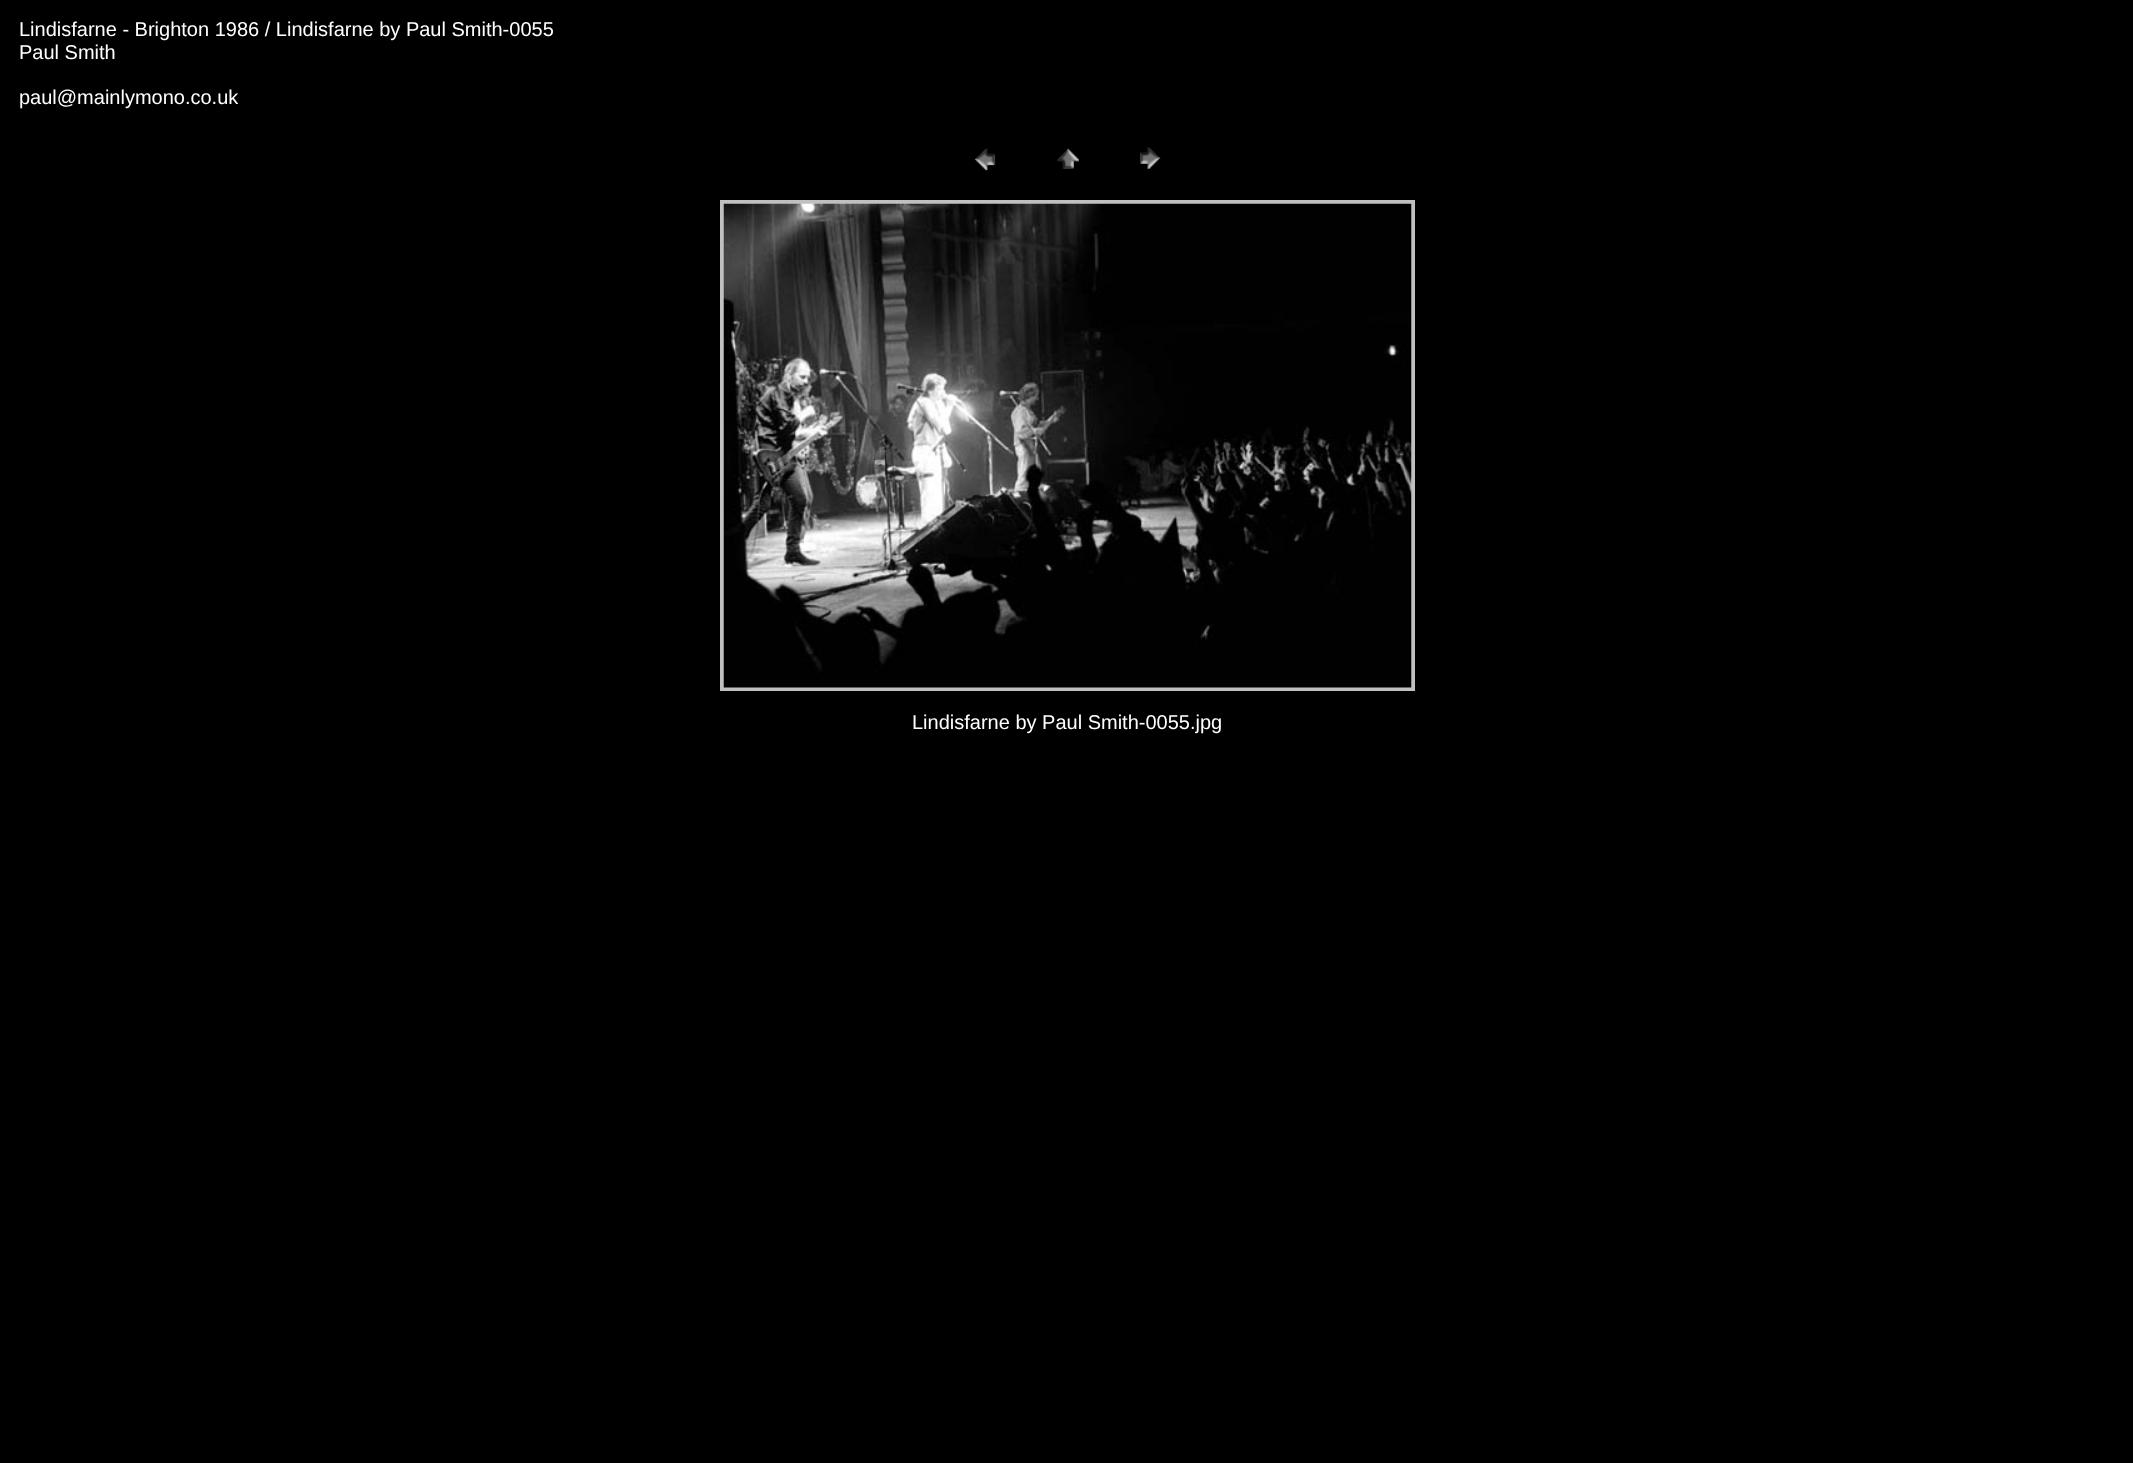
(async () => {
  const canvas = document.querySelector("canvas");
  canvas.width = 2133;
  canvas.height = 1463;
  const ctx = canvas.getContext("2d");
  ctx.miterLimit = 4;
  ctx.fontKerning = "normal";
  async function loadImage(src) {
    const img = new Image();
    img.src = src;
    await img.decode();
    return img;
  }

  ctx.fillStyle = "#000000";
  ctx.fillRect(0, 0, 2133, 1463);
  ctx.drawImage(await loadImage("img/1.png"), 974, 148, 22, 23);
  ctx.drawImage(await loadImage("img/2.png"), 1057, 148, 22, 21);
  ctx.drawImage(await loadImage("img/3.png"), 1140, 147, 21, 22);
  ctx.strokeStyle = "#c0c0c0";
  ctx.lineWidth = 4;
  ctx.strokeRect(722, 202, 691, 487);
  ctx.drawImage(await loadImage("img/4.png"), 723, 203, 689, 485);
  ctx.font = "20px Liberation Sans";
  ctx.fillStyle = "#ffffff";
  for (const [text, x, y] of [
    ["Lindisfarne - Brighton 1986 / Lindisfarne by Paul Smith-0055", 19, 36],
    ["Paul Smith", 19, 59],
    ["paul@mainlymono.co.uk", 19, 104],
    ["Lindisfarne by Paul Smith-0055.jpg", 912, 729],
  ]) {
    ctx.fillText(text, x, y);
  }
})();
